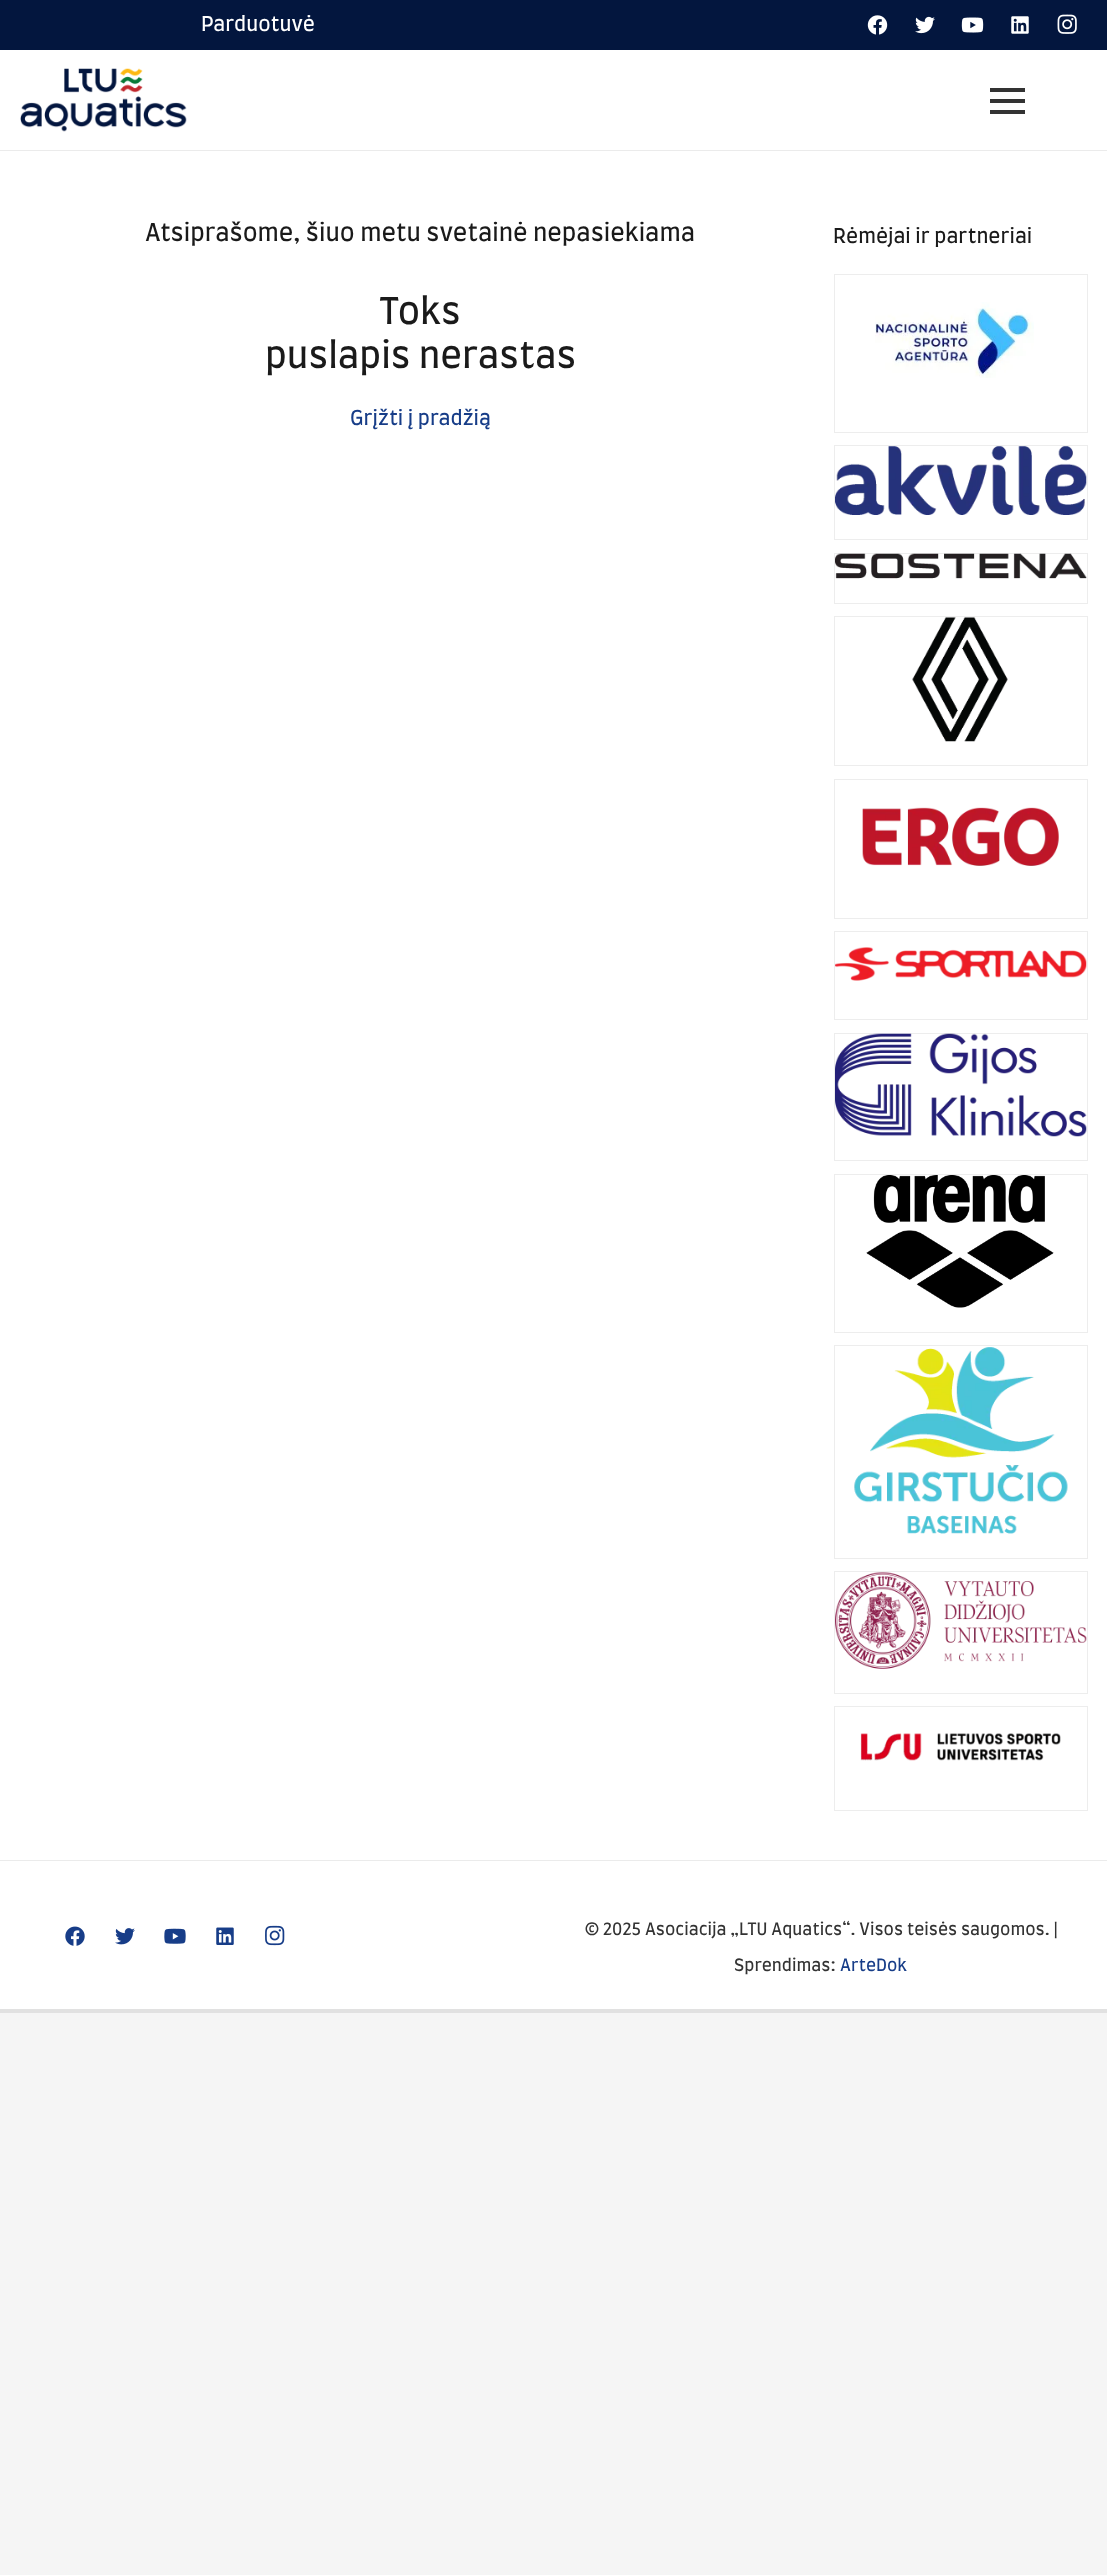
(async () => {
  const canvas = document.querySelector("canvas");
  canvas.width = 1107;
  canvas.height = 2575;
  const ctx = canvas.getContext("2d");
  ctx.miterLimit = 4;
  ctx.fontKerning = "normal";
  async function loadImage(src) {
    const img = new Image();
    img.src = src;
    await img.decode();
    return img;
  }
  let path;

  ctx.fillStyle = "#f5f5f5";
  ctx.fillRect(0, 0, 1107, 2575);
  ctx.fillStyle = "#ffffff";
  ctx.fillRect(0, 50, 1107, 1811);
  ctx.fillStyle = "#03163e";
  ctx.fillRect(0, 0, 1107, 50);
  ctx.drawImage(await loadImage("img/1.png"), 867, 15, 21, 20);
  ctx.drawImage(await loadImage("img/2.png"), 915, 16, 20, 18);
  ctx.drawImage(await loadImage("img/3.png"), 961, 17, 23, 16);
  ctx.drawImage(await loadImage("img/4.png"), 1011, 16, 18, 18);
  ctx.drawImage(await loadImage("img/5.png"), 1057, 14, 20, 20);
  ctx.fillStyle = "#ebebeb";
  path = new Path2D("M0 150V151H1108V51V150Z");
  ctx.fill(path);
  ctx.drawImage(await loadImage("img/6.png"), 20, 68, 167, 64);
  for (const [x, y, w, h, color] of [
    [990, 99, 35, 4, "#333333"],
    [990, 88, 35, 4, "#333333"],
    [990, 110, 35, 4, "#333333"],
  ]) {
    ctx.fillStyle = color;
    ctx.fillRect(x, y, w, h);
  }
  ctx.strokeStyle = "#ededed";
  ctx.strokeRect(834.5, 274.5, 253, 158);
  ctx.drawImage(await loadImage("img/7.png"), 875, 302, 159, 76);
  ctx.strokeRect(834.5, 445.5, 253, 94);
  ctx.drawImage(await loadImage("img/8.png"), 835, 446, 252, 69);
  ctx.strokeRect(834.5, 553.5, 253, 50);
  ctx.drawImage(await loadImage("img/9.png"), 835, 553, 252, 26);
  ctx.strokeRect(834.5, 616.5, 253, 149);
  ctx.drawImage(await loadImage("img/10.png"), 912, 617, 96, 125);
  ctx.strokeRect(834.5, 779.5, 253, 139);
  ctx.drawImage(await loadImage("img/11.png"), 862, 807, 197, 59);
  ctx.strokeRect(834.5, 931.5, 253, 88);
  ctx.drawImage(await loadImage("img/12.png"), 835, 947, 252, 34);
  ctx.strokeRect(834.5, 1033.5, 253, 127);
  ctx.drawImage(await loadImage("img/13.png"), 835, 1033, 252, 104);
  ctx.strokeRect(834.5, 1174.5, 253, 158);
  ctx.drawImage(await loadImage("img/14.png"), 866, 1175, 188, 133);
  ctx.strokeRect(834.5, 1345.5, 253, 213);
  ctx.drawImage(await loadImage("img/15.png"), 854, 1347, 214, 187);
  ctx.strokeRect(834.5, 1571.5, 253, 122);
  ctx.drawImage(await loadImage("img/16.png"), 835, 1572, 252, 97);
  ctx.strokeRect(834.5, 1706.5, 253, 104);
  ctx.drawImage(await loadImage("img/17.png"), 860, 1733, 201, 28);
  ctx.fillStyle = "rgba(0, 0, 0, 0.08)";
  path = new Path2D("M-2 1860V2013H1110V1860ZM0 1861V2009H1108V1861Z");
  ctx.fill(path, "evenodd");
  ctx.fillStyle = "#ffffff";
  ctx.fillRect(0, 1861, 1107, 148);
  ctx.drawImage(await loadImage("img/18.png"), 65, 1926, 20, 20);
  ctx.drawImage(await loadImage("img/19.png"), 115, 1928, 20, 17);
  ctx.drawImage(await loadImage("img/20.png"), 164, 1928, 22, 16);
  ctx.drawImage(await loadImage("img/21.png"), 216, 1927, 18, 18);
  ctx.drawImage(await loadImage("img/22.png"), 265, 1925, 20, 21);
  ctx.font = "20px Farro";
  ctx.fillText("Parduotuvė", 201, 31);
  ctx.font = "24px Farro";
  ctx.fillStyle = "#1a1a1a";
  ctx.fillText("Atsiprašome, šiuo metu svetainė nepasiekiama", 145, 241);
  ctx.font = "36px Farro";
  ctx.fillText("Toks", 379, 324);
  ctx.fillText("puslapis nerastas", 265, 368);
  ctx.font = "20px Farro";
  ctx.fillStyle = "#173d88";
  ctx.fillText("Grįžti į pradžią", 350, 425);
  ctx.fillStyle = "#1a1a1a";
  ctx.fillText("Rėmėjai ir partneriai", 833, 243);
  ctx.font = "16.7px Farro";
  ctx.fillStyle = "#333333";
  ctx.fillText("© 2025 Asociacija „LTU Aquatics“. Visos teisės saugomos. |", 585, 1935);
  ctx.fillText("Sprendimas:", 734, 1971);
  ctx.fillStyle = "#173d88";
  ctx.fillText("ArteDok", 840, 1971);
})();
